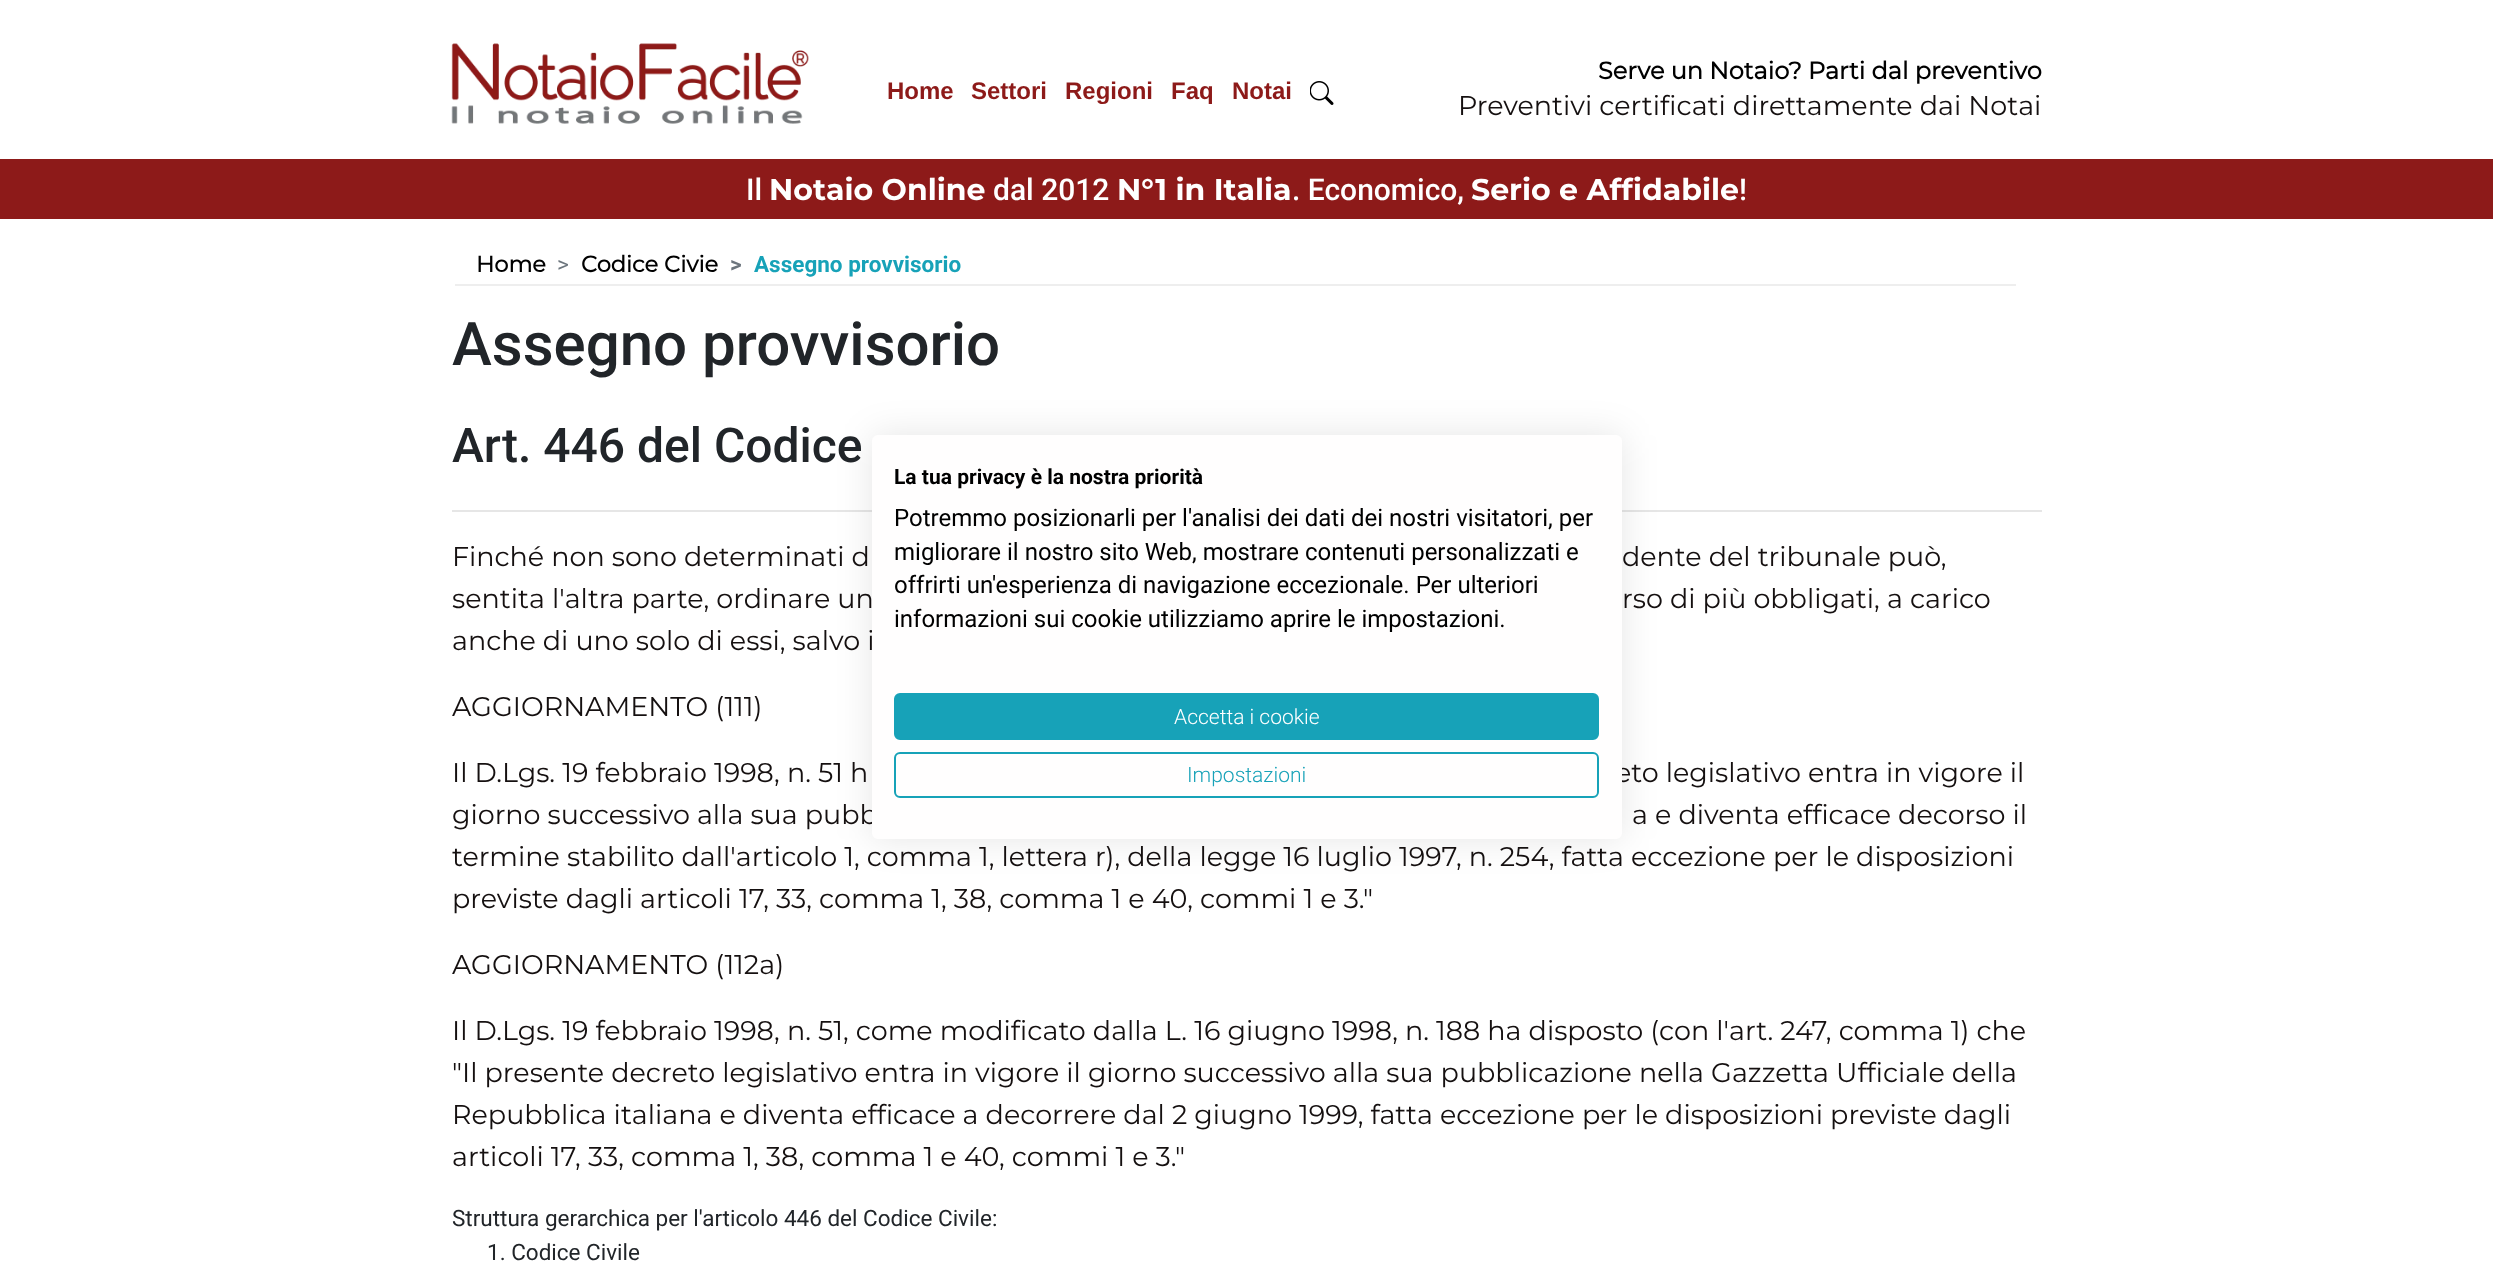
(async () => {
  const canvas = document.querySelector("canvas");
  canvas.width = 2493;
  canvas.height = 1273;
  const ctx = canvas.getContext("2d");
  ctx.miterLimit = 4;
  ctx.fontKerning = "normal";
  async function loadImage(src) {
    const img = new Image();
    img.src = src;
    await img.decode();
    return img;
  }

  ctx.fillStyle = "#ffffff";
  ctx.fillRect(0, 0, 2493, 1273);
  ctx.drawImage(await loadImage("img/1.png"), 451, 43, 358, 81);
  ctx.drawImage(await loadImage("img/2.png"), 1310, 81, 24, 24);
  for (const [x, y, w, h, color] of [
    [0, 159, 2493, 60, "#8d1a19"],
    [455, 284, 1561, 2, "#eeeeee"],
    [452, 510, 1590, 2, "#e6e6e6"],
  ]) {
    ctx.fillStyle = color;
    ctx.fillRect(x, y, w, h);
  }
  ctx.fillStyle = "rgba(0, 0, 0, 0.1)";
  ctx.filter = "blur(18px)";
  ctx.beginPath();
  ctx.roundRect(872, 435, 750, 404, 6);
  ctx.fill();
  ctx.filter = "none";
  ctx.font = "bold 24px Liberation Sans";
  ctx.fillStyle = "#8d1a19";
  for (const [text, x, y] of [
    ["Home", 887, 99],
    ["Settori", 971, 99],
    ["Regioni", 1065, 99],
    ["Faq", 1171, 99],
    ["Notai", 1232, 99],
  ]) {
    ctx.fillText(text, x, y);
  }
  ctx.font = "bold 24px Montserrat";
  ctx.fillStyle = "#000000";
  ctx.fillText("Serve un Notaio? Parti dal preventivo", 1598, 79);
  ctx.font = "27px Montserrat";
  ctx.fillStyle = "#151010";
  ctx.fillText("Preventivi certificati direttamente dai Notai", 1458, 115);
  ctx.font = "500 30px Roboto";
  ctx.fillStyle = "#ffffff";
  ctx.fillText("Il", 746, 200);
  ctx.font = "bold 30px 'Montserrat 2'";
  ctx.fillText("Notaio Online", 769, 200);
  ctx.font = "500 30px Roboto";
  ctx.fillText("dal 2012", 993, 200);
  ctx.font = "bold 30px 'Montserrat 2'";
  ctx.fillText("N°1 in Italia", 1117, 200);
  ctx.font = "500 30px Roboto";
  ctx.fillText(". Economico,", 1292, 200);
  ctx.font = "bold 30px 'Montserrat 2'";
  ctx.fillText("Serio e Affidabile", 1471, 200);
  ctx.font = "500 30px Roboto";
  ctx.fillText("!", 1739, 200);
  ctx.font = "bold 22.5px Montserrat";
  ctx.fillStyle = "#000000";
  ctx.fillText("Home", 476, 272);
  ctx.font = "22.5px Roboto";
  ctx.fillStyle = "#6c757d";
  ctx.fillText(">", 557, 272);
  ctx.font = "bold 22.5px Montserrat";
  ctx.fillStyle = "#000000";
  ctx.fillText("Codice Civie", 581, 272);
  ctx.font = "bold 22.5px Roboto";
  ctx.fillStyle = "#6c757d";
  ctx.fillText(">", 730, 272);
  ctx.fillStyle = "#17a2b8";
  ctx.fillText("Assegno provvisorio", 754, 272);
  ctx.font = "500 60px Roboto";
  ctx.fillStyle = "#212529";
  ctx.fillText("Assegno provvisorio", 452, 365);
  ctx.font = "500 48px Roboto";
  ctx.fillText("Art. 446 del Codice", 452, 462);
  ctx.font = "27px Montserrat";
  ctx.fillStyle = "#151010";
  for (const [text, x, y] of [
    ["Finché non sono determinati d", 452, 566],
    ["dente del tribunale può,", 1622, 566],
    ["sentita l'altra parte, ordinare un", 452, 608],
    ["rso di più obbligati, a carico", 1622, 608],
    ["anche di uno solo di essi, salvo i", 452, 650],
    ["AGGIORNAMENTO (111)", 452, 716],
    ["Il D.Lgs. 19 febbraio 1998, n. 51 h", 452, 782],
    ["eto legislativo entra in vigore il", 1615, 782],
    ["giorno successivo alla sua pubb", 452, 824],
    ["a e diventa efficace decorso il", 1632, 824],
    ["termine stabilito dall'articolo 1, comma 1, lettera r), della legge 16 luglio 1997, n. 254, fatta eccezione per le disposizioni", 452, 866],
    ["previste dagli articoli 17, 33, comma 1, 38, comma 1 e 40, commi 1 e 3.\"", 452, 908],
    ["AGGIORNAMENTO (112a)", 452, 974],
    ["Il D.Lgs. 19 febbraio 1998, n. 51, come modificato dalla L. 16 giugno 1998, n. 188 ha disposto (con l'art. 247, comma 1) che", 452, 1040],
    ["\"Il presente decreto legislativo entra in vigore il giorno successivo alla sua pubblicazione nella Gazzetta Ufficiale della", 452, 1082],
    ["Repubblica italiana e diventa efficace a decorrere dal 2 giugno 1999, fatta eccezione per le disposizioni previste dagli", 452, 1124],
    ["articoli 17, 33, comma 1, 38, comma 1 e 40, commi 1 e 3.\"", 452, 1166],
  ]) {
    ctx.fillText(text, x, y);
  }
  ctx.font = "22.5px Roboto";
  ctx.fillStyle = "#212529";
  ctx.fillText("Struttura gerarchica per l'articolo 446 del Codice Civile:", 452, 1226);
  ctx.fillText("1. Codice Civile", 487, 1260);
  ctx.fillStyle = "#fffefe";
  ctx.beginPath();
  ctx.roundRect(872, 435, 750, 404, 6);
  ctx.fill();
  ctx.font = "bold 21px Roboto";
  ctx.fillStyle = "#000000";
  ctx.fillText("La tua privacy è la nostra priorità", 894, 484);
  ctx.font = "24px Roboto";
  for (const [text, x, y] of [
    ["Potremmo posizionarli per l'analisi dei dati dei nostri visitatori, per", 894, 526],
    ["migliorare il nostro sito Web, mostrare contenuti personalizzati e", 894, 560],
    ["offrirti un'esperienza di navigazione eccezionale. Per ulteriori", 894, 593],
    ["informazioni sui cookie utilizziamo aprire le impostazioni.", 894, 627],
  ]) {
    ctx.fillText(text, x, y);
  }
  ctx.fillStyle = "#17a2b8";
  ctx.beginPath();
  ctx.roundRect(895, 694, 703, 45, 5);
  ctx.fill();
  ctx.strokeStyle = "#17a2b8";
  ctx.lineWidth = 2;
  ctx.stroke();
  ctx.font = "300 21px Roboto";
  ctx.fillStyle = "#ffffff";
  ctx.fillText("Accetta i cookie", 1174, 724);
  ctx.beginPath();
  ctx.roundRect(895, 753, 703, 44, 5);
  ctx.stroke();
  ctx.fillStyle = "#17a2b8";
  ctx.fillText("Impostazioni", 1187, 782);
})();
